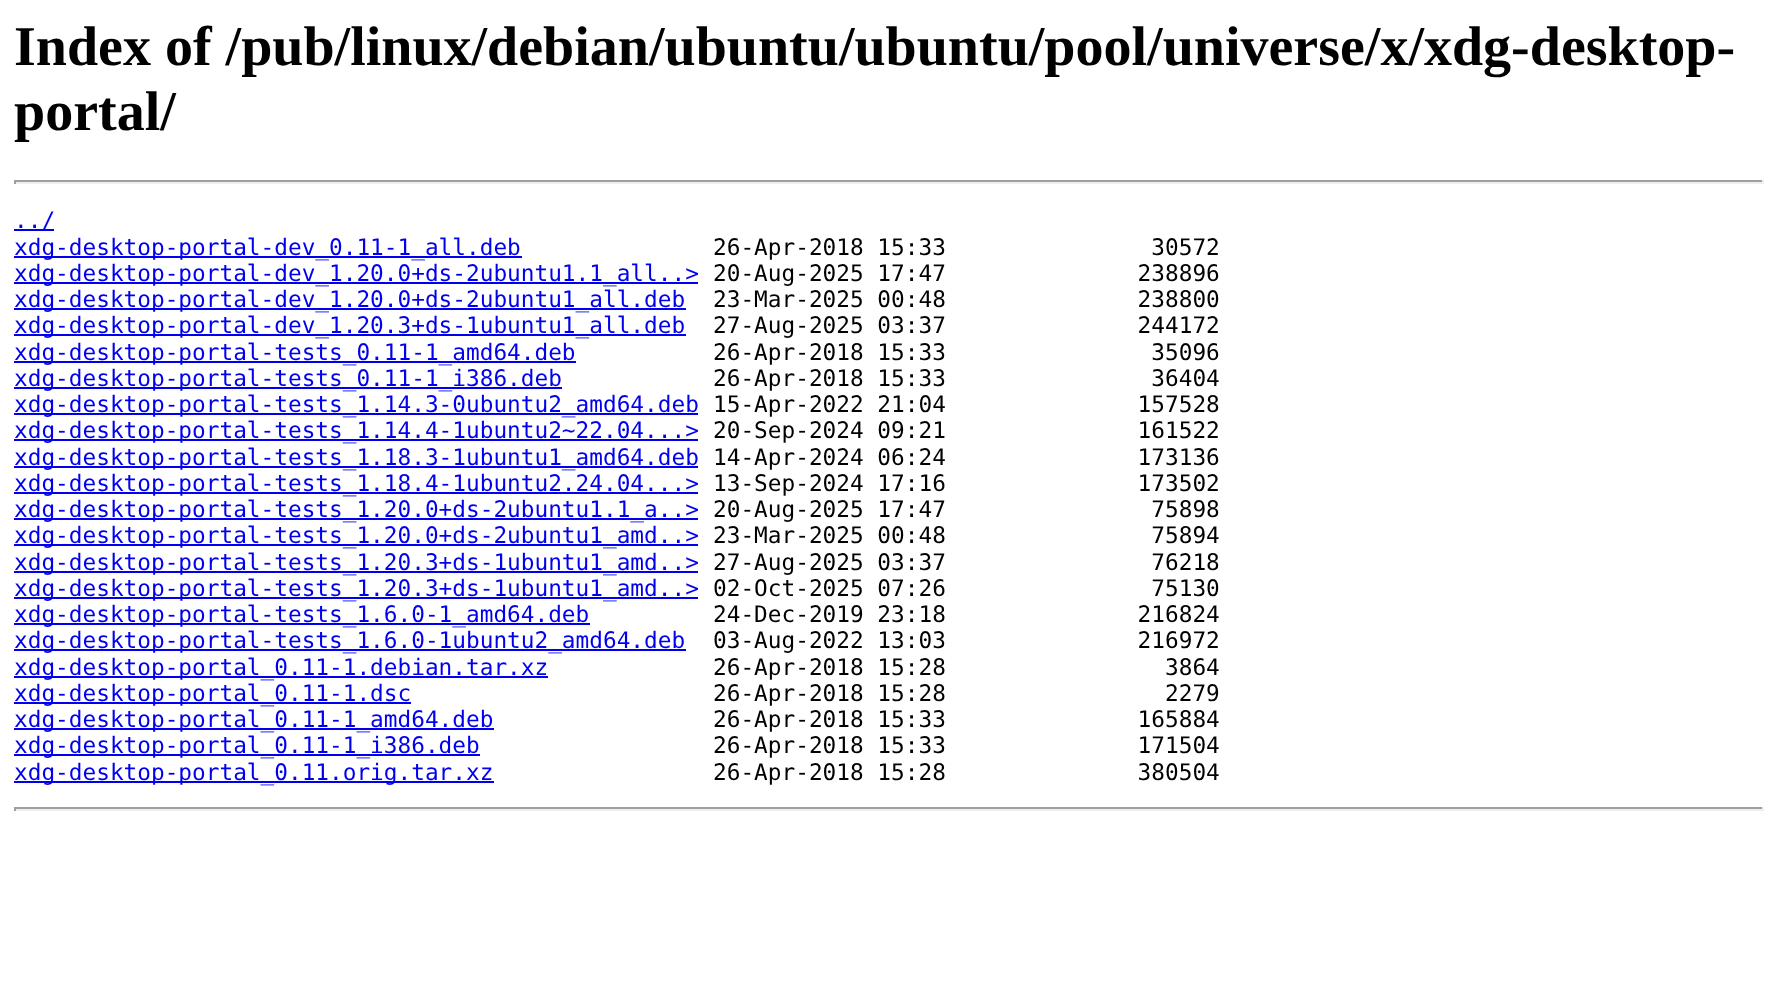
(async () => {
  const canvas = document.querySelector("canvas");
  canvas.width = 1778;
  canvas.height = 990;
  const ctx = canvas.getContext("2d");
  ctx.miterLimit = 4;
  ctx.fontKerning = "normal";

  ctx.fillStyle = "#ffffff";
  ctx.fillRect(0, 0, 1778, 990);
  for (const [x, y, w, h, color] of [
    [14, 180, 1750, 2, "#9f9f9f"],
    [1762, 180, 2, 4, "#eeeeee"],
    [14, 182, 1750, 2, "#eeeeee"],
    [14, 180, 2, 4, "#9f9f9f"],
    [14, 229, 40, 2, "#0000ee"],
    [14, 256, 508, 2, "#0000ee"],
    [14, 282, 684, 2, "#0000ee"],
    [14, 308, 672, 2, "#0000ee"],
    [14, 334, 672, 2, "#0000ee"],
    [14, 361, 562, 2, "#0000ee"],
    [14, 387, 548, 2, "#0000ee"],
    [14, 413, 684, 2, "#0000ee"],
    [14, 439, 684, 2, "#0000ee"],
    [14, 466, 684, 2, "#0000ee"],
    [14, 492, 684, 2, "#0000ee"],
    [14, 518, 684, 2, "#0000ee"],
    [14, 544, 684, 2, "#0000ee"],
    [14, 571, 684, 2, "#0000ee"],
    [14, 597, 684, 2, "#0000ee"],
    [14, 623, 576, 2, "#0000ee"],
    [14, 649, 672, 2, "#0000ee"],
    [14, 676, 534, 2, "#0000ee"],
    [14, 702, 397, 2, "#0000ee"],
    [14, 728, 480, 2, "#0000ee"],
    [14, 754, 466, 2, "#0000ee"],
    [14, 781, 480, 2, "#0000ee"],
    [14, 807, 1750, 2, "#9f9f9f"],
    [1762, 807, 2, 4, "#eeeeee"],
    [14, 809, 1750, 2, "#eeeeee"],
    [14, 807, 2, 4, "#9f9f9f"],
  ]) {
    ctx.fillStyle = color;
    ctx.fillRect(x, y, w, h);
  }
  ctx.font = "bold 56px Liberation Serif";
  ctx.fillStyle = "#000000";
  ctx.fillText("Index of /pub/linux/debian/ubuntu/ubuntu/pool/universe/x/xdg-desktop-", 14, 65);
  ctx.fillText("portal/", 14, 130);
  ctx.font = "22.75px DejaVu Sans Mono";
  ctx.fillStyle = "#0000ee";
  ctx.fillText("../", 14, 228);
  ctx.fillText("xdg-desktop-portal-dev_0.11-1_all.deb", 14, 255);
  ctx.fillStyle = "#000000";
  ctx.fillText("26-Apr-2018 15:33               30572", 713, 255);
  ctx.fillStyle = "#0000ee";
  ctx.fillText("xdg-desktop-portal-dev_1.20.0+ds-2ubuntu1.1_all..>", 14, 281);
  ctx.fillStyle = "#000000";
  ctx.fillText("20-Aug-2025 17:47              238896", 713, 281);
  ctx.fillStyle = "#0000ee";
  ctx.fillText("xdg-desktop-portal-dev_1.20.0+ds-2ubuntu1_all.deb", 14, 307);
  ctx.fillStyle = "#000000";
  ctx.fillText("23-Mar-2025 00:48              238800", 713, 307);
  ctx.fillStyle = "#0000ee";
  ctx.fillText("xdg-desktop-portal-dev_1.20.3+ds-1ubuntu1_all.deb", 14, 333);
  ctx.fillStyle = "#000000";
  ctx.fillText("27-Aug-2025 03:37              244172", 713, 333);
  ctx.fillStyle = "#0000ee";
  ctx.fillText("xdg-desktop-portal-tests_0.11-1_amd64.deb", 14, 360);
  ctx.fillStyle = "#000000";
  ctx.fillText("26-Apr-2018 15:33               35096", 713, 360);
  ctx.fillStyle = "#0000ee";
  ctx.fillText("xdg-desktop-portal-tests_0.11-1_i386.deb", 14, 386);
  ctx.fillStyle = "#000000";
  ctx.fillText("26-Apr-2018 15:33               36404", 713, 386);
  ctx.fillStyle = "#0000ee";
  ctx.fillText("xdg-desktop-portal-tests_1.14.3-0ubuntu2_amd64.deb", 14, 412);
  ctx.fillStyle = "#000000";
  ctx.fillText("15-Apr-2022 21:04              157528", 713, 412);
  ctx.fillStyle = "#0000ee";
  ctx.fillText("xdg-desktop-portal-tests_1.14.4-1ubuntu2~22.04...>", 14, 438);
  ctx.fillStyle = "#000000";
  ctx.fillText("20-Sep-2024 09:21              161522", 713, 438);
  ctx.fillStyle = "#0000ee";
  ctx.fillText("xdg-desktop-portal-tests_1.18.3-1ubuntu1_amd64.deb", 14, 465);
  ctx.fillStyle = "#000000";
  ctx.fillText("14-Apr-2024 06:24              173136", 713, 465);
  ctx.fillStyle = "#0000ee";
  ctx.fillText("xdg-desktop-portal-tests_1.18.4-1ubuntu2.24.04...>", 14, 491);
  ctx.fillStyle = "#000000";
  ctx.fillText("13-Sep-2024 17:16              173502", 713, 491);
  ctx.fillStyle = "#0000ee";
  ctx.fillText("xdg-desktop-portal-tests_1.20.0+ds-2ubuntu1.1_a..>", 14, 517);
  ctx.fillStyle = "#000000";
  ctx.fillText("20-Aug-2025 17:47               75898", 713, 517);
  ctx.fillStyle = "#0000ee";
  ctx.fillText("xdg-desktop-portal-tests_1.20.0+ds-2ubuntu1_amd..>", 14, 543);
  ctx.fillStyle = "#000000";
  ctx.fillText("23-Mar-2025 00:48               75894", 713, 543);
  ctx.fillStyle = "#0000ee";
  ctx.fillText("xdg-desktop-portal-tests_1.20.3+ds-1ubuntu1_amd..>", 14, 570);
  ctx.fillStyle = "#000000";
  ctx.fillText("27-Aug-2025 03:37               76218", 713, 570);
  ctx.fillStyle = "#0000ee";
  ctx.fillText("xdg-desktop-portal-tests_1.20.3+ds-1ubuntu1_amd..>", 14, 596);
  ctx.fillStyle = "#000000";
  ctx.fillText("02-Oct-2025 07:26               75130", 713, 596);
  ctx.fillStyle = "#0000ee";
  ctx.fillText("xdg-desktop-portal-tests_1.6.0-1_amd64.deb", 14, 622);
  ctx.fillStyle = "#000000";
  ctx.fillText("24-Dec-2019 23:18              216824", 713, 622);
  ctx.fillStyle = "#0000ee";
  ctx.fillText("xdg-desktop-portal-tests_1.6.0-1ubuntu2_amd64.deb", 14, 648);
  ctx.fillStyle = "#000000";
  ctx.fillText("03-Aug-2022 13:03              216972", 713, 648);
  ctx.fillStyle = "#0000ee";
  ctx.fillText("xdg-desktop-portal_0.11-1.debian.tar.xz", 14, 675);
  ctx.fillStyle = "#000000";
  ctx.fillText("26-Apr-2018 15:28                3864", 713, 675);
  ctx.fillStyle = "#0000ee";
  ctx.fillText("xdg-desktop-portal_0.11-1.dsc", 14, 701);
  ctx.fillStyle = "#000000";
  ctx.fillText("26-Apr-2018 15:28                2279", 713, 701);
  ctx.fillStyle = "#0000ee";
  ctx.fillText("xdg-desktop-portal_0.11-1_amd64.deb", 14, 727);
  ctx.fillStyle = "#000000";
  ctx.fillText("26-Apr-2018 15:33              165884", 713, 727);
  ctx.fillStyle = "#0000ee";
  ctx.fillText("xdg-desktop-portal_0.11-1_i386.deb", 14, 753);
  ctx.fillStyle = "#000000";
  ctx.fillText("26-Apr-2018 15:33              171504", 713, 753);
  ctx.fillStyle = "#0000ee";
  ctx.fillText("xdg-desktop-portal_0.11.orig.tar.xz", 14, 780);
  ctx.fillStyle = "#000000";
  ctx.fillText("26-Apr-2018 15:28              380504", 713, 780);
})();
